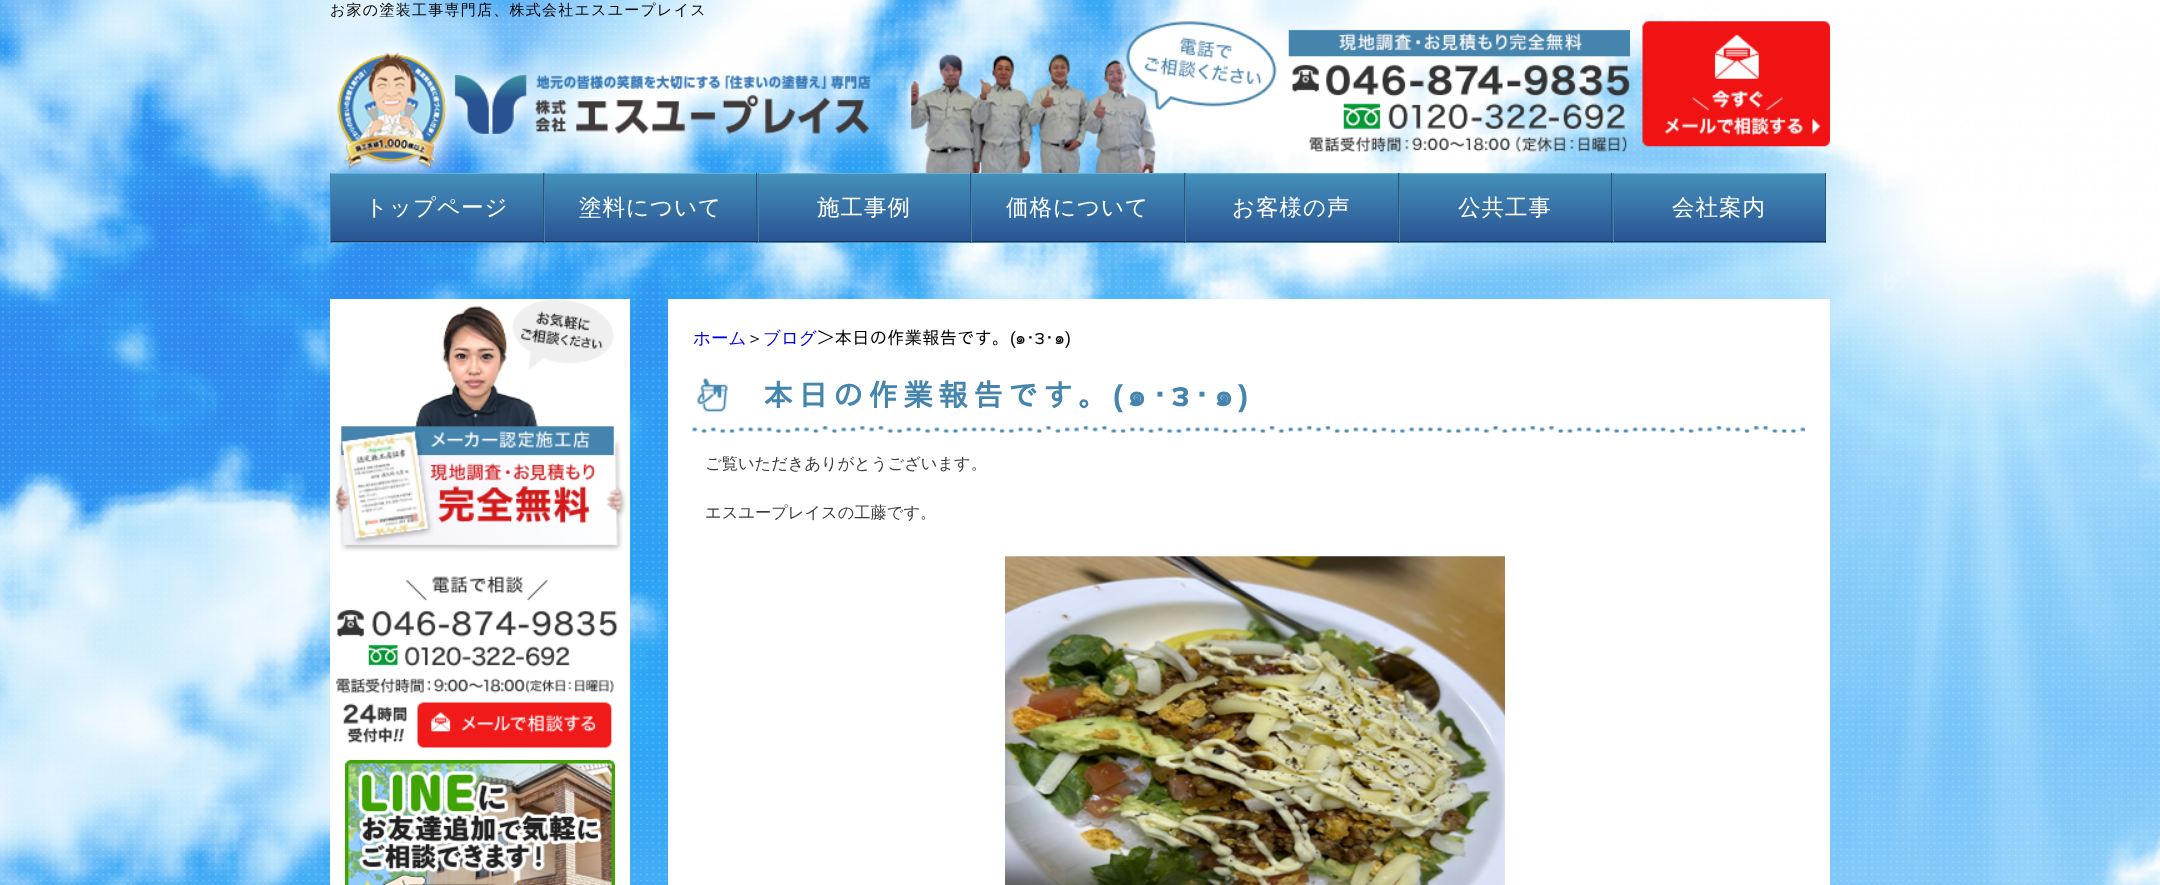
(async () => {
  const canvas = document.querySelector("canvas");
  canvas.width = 2160;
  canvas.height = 885;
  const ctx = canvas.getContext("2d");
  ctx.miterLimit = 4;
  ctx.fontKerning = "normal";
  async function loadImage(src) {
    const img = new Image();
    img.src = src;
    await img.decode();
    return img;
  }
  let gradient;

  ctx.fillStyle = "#ffffff";
  ctx.fillRect(0, 0, 2160, 885);
  ctx.drawImage(await loadImage("img/1.png"), 0, 0, 2160, 885);
  ctx.drawImage(await loadImage("img/2.png"), 316, 31, 578, 152);
  ctx.drawImage(await loadImage("img/3.png"), 911, 21, 719, 152);
  ctx.drawImage(await loadImage("img/4.png"), 1642, 21, 188, 126);
  gradient = ctx.createLinearGradient(437, 174, 437, 241);
  gradient.addColorStop(0, "#4491bb");
  gradient.addColorStop(1, "#2a5392");
  ctx.fillStyle = gradient;
  ctx.fillRect(331, 174, 212, 67);
  gradient = ctx.createLinearGradient(437, 241, 437, 309);
  gradient.addColorStop(0, "#4491bb");
  gradient.addColorStop(1, "#2a5392");
  ctx.fillStyle = gradient;
  ctx.fillRect(330, 242, 214, 1);
  for (const [x, y, w, h, color] of [
    [330, 173, 1496, 1, "#6cb0ce"],
    [543, 173, 1, 70, "#28577e"],
    [330, 241, 214, 1, "#163359"],
    [330, 173, 1, 70, "#4780af"],
  ]) {
    ctx.fillStyle = color;
    ctx.fillRect(x, y, w, h);
  }
  gradient = ctx.createLinearGradient(651, 174, 651, 241);
  gradient.addColorStop(0, "#4491bb");
  gradient.addColorStop(1, "#2a5392");
  ctx.fillStyle = gradient;
  ctx.fillRect(545, 174, 213, 67);
  gradient = ctx.createLinearGradient(651, 241, 651, 309);
  gradient.addColorStop(0, "#4491bb");
  gradient.addColorStop(1, "#2a5392");
  ctx.fillStyle = gradient;
  ctx.fillRect(544, 242, 214, 1);
  for (const [x, y, w, h, color] of [
    [756, 173, 1, 70, "#28577e"],
    [544, 241, 214, 1, "#163359"],
    [544, 173, 1, 70, "#4780af"],
  ]) {
    ctx.fillStyle = color;
    ctx.fillRect(x, y, w, h);
  }
  gradient = ctx.createLinearGradient(864, 174, 864, 241);
  gradient.addColorStop(0, "#4491bb");
  gradient.addColorStop(1, "#2a5392");
  ctx.fillStyle = gradient;
  ctx.fillRect(759, 174, 211, 67);
  gradient = ctx.createLinearGradient(864, 241, 864, 309);
  gradient.addColorStop(0, "#4491bb");
  gradient.addColorStop(1, "#2a5392");
  ctx.fillStyle = gradient;
  ctx.fillRect(758, 242, 213, 1);
  for (const [x, y, w, h, color] of [
    [970, 173, 1, 70, "#28577e"],
    [758, 241, 213, 1, "#163359"],
    [758, 173, 1, 70, "#4780af"],
  ]) {
    ctx.fillStyle = color;
    ctx.fillRect(x, y, w, h);
  }
  gradient = ctx.createLinearGradient(1078, 174, 1078, 241);
  gradient.addColorStop(0, "#4491bb");
  gradient.addColorStop(1, "#2a5392");
  ctx.fillStyle = gradient;
  ctx.fillRect(972, 174, 212, 67);
  gradient = ctx.createLinearGradient(1078, 241, 1078, 309);
  gradient.addColorStop(0, "#4491bb");
  gradient.addColorStop(1, "#2a5392");
  ctx.fillStyle = gradient;
  ctx.fillRect(971, 242, 214, 1);
  for (const [x, y, w, h, color] of [
    [1184, 173, 1, 70, "#28577e"],
    [971, 241, 214, 1, "#163359"],
    [971, 173, 1, 70, "#4780af"],
  ]) {
    ctx.fillStyle = color;
    ctx.fillRect(x, y, w, h);
  }
  gradient = ctx.createLinearGradient(1292, 174, 1292, 241);
  gradient.addColorStop(0, "#4491bb");
  gradient.addColorStop(1, "#2a5392");
  ctx.fillStyle = gradient;
  ctx.fillRect(1186, 174, 212, 67);
  gradient = ctx.createLinearGradient(1292, 241, 1292, 309);
  gradient.addColorStop(0, "#4491bb");
  gradient.addColorStop(1, "#2a5392");
  ctx.fillStyle = gradient;
  ctx.fillRect(1185, 242, 214, 1);
  for (const [x, y, w, h, color] of [
    [1398, 173, 1, 70, "#28577e"],
    [1185, 241, 214, 1, "#163359"],
    [1185, 173, 1, 70, "#4780af"],
  ]) {
    ctx.fillStyle = color;
    ctx.fillRect(x, y, w, h);
  }
  gradient = ctx.createLinearGradient(1506, 174, 1506, 241);
  gradient.addColorStop(0, "#4491bb");
  gradient.addColorStop(1, "#2a5392");
  ctx.fillStyle = gradient;
  ctx.fillRect(1400, 174, 213, 67);
  gradient = ctx.createLinearGradient(1506, 241, 1506, 309);
  gradient.addColorStop(0, "#4491bb");
  gradient.addColorStop(1, "#2a5392");
  ctx.fillStyle = gradient;
  ctx.fillRect(1399, 242, 214, 1);
  for (const [x, y, w, h, color] of [
    [1611, 173, 1, 70, "#28577e"],
    [1399, 241, 214, 1, "#163359"],
    [1399, 173, 1, 70, "#4780af"],
  ]) {
    ctx.fillStyle = color;
    ctx.fillRect(x, y, w, h);
  }
  gradient = ctx.createLinearGradient(1719, 174, 1719, 241);
  gradient.addColorStop(0, "#4491bb");
  gradient.addColorStop(1, "#2a5392");
  ctx.fillStyle = gradient;
  ctx.fillRect(1614, 174, 211, 67);
  gradient = ctx.createLinearGradient(1719, 241, 1719, 309);
  gradient.addColorStop(0, "#4491bb");
  gradient.addColorStop(1, "#2a5392");
  ctx.fillStyle = gradient;
  ctx.fillRect(1613, 242, 213, 1);
  for (const [x, y, w, h, color] of [
    [1825, 173, 1, 70, "#28577e"],
    [1613, 241, 213, 1, "#163359"],
    [1613, 173, 1, 70, "#4780af"],
    [330, 299, 300, 586, "#ffffff"],
  ]) {
    ctx.fillStyle = color;
    ctx.fillRect(x, y, w, h);
  }
  ctx.drawImage(await loadImage("img/5.png"), 334, 298, 292, 450);
  ctx.drawImage(await loadImage("img/6.png"), 345, 760, 270, 125);
  ctx.fillRect(668, 299, 1162, 586);
  ctx.drawImage(await loadImage("img/7.png"), 692, 378, 1113, 55);
  ctx.drawImage(await loadImage("img/8.png"), 1005, 556, 500, 329);
  ctx.letterSpacing = "1.25px";
  ctx.font = "500 15px WenQuanYi Zen Hei";
  ctx.fillStyle = "#000000";
  ctx.fillText("お家の塗装工事専門店、株式会社エスユープレイス", 330, 15);
  ctx.letterSpacing = "1px";
  ctx.font = "500 22.5px WenQuanYi Zen Hei";
  ctx.fillStyle = "#ffffff";
  for (const [text, x, y] of [
    ["トップページ", 365, 215],
    ["塗料について", 579, 215],
    ["施工事例", 817, 215],
    ["価格について", 1006, 215],
    ["お客様の声", 1232, 215],
    ["公共工事", 1458, 215],
    ["会社案内", 1672, 215],
  ]) {
    ctx.fillText(text, x, y);
  }
  ctx.letterSpacing = "0px";
  ctx.font = "500 17.5px WenQuanYi Zen Hei";
  ctx.fillStyle = "#0000ee";
  ctx.fillText("ホーム", 693, 344);
  ctx.fillStyle = "#000000";
  ctx.fillText("＞", 746, 344);
  ctx.fillStyle = "#0000ee";
  ctx.fillText("ブログ", 763, 344);
  ctx.font = "17.5px IPAGothic";
  ctx.fillStyle = "#000000";
  ctx.fillText("＞本日の作業報告です。", 817, 344);
  ctx.font = "17.5px Liberation Sans";
  ctx.fillText("(", 1010, 344);
  ctx.font = "17.5px Loma";
  ctx.fillText("๑", 1015, 344);
  ctx.font = "17.5px IPAGothic";
  ctx.fillText("･", 1026, 344);
  ctx.font = "17.5px Noto Sans Telugu";
  ctx.fillText("౩", 1035, 344);
  ctx.font = "17.5px IPAGothic";
  ctx.fillText("･", 1045, 344);
  ctx.font = "17.5px Loma";
  ctx.fillText("๑", 1054, 344);
  ctx.font = "17.5px Liberation Sans";
  ctx.fillText(")", 1065, 344);
  ctx.letterSpacing = "5px";
  ctx.font = "bold 30px IPAGothic";
  ctx.fillStyle = "#4484ad";
  ctx.fillText("本日の作業報告です。", 763, 406);
  ctx.font = "bold 30px Liberation Sans";
  ctx.fillText("(", 1113, 406);
  ctx.font = "bold 30px Loma";
  ctx.fillText("๑", 1127, 406);
  ctx.font = "bold 30px IPAGothic";
  ctx.fillText("･", 1152, 406);
  ctx.font = "bold 30px Noto Sans Telugu";
  ctx.fillText("౩", 1172, 406);
  ctx.font = "bold 30px IPAGothic";
  ctx.fillText("･", 1194, 406);
  ctx.font = "bold 30px Loma";
  ctx.fillText("๑", 1214, 406);
  ctx.font = "bold 30px Liberation Sans";
  ctx.fillText(")", 1238, 406);
  ctx.letterSpacing = "0px";
  ctx.font = "500 16.25px WenQuanYi Zen Hei";
  ctx.fillStyle = "#3a3a3a";
  ctx.fillText("ご覧いただきありがとうございます。", 705, 469);
  ctx.fillText("エスユープレイスの工藤です。", 705, 518);
})();
